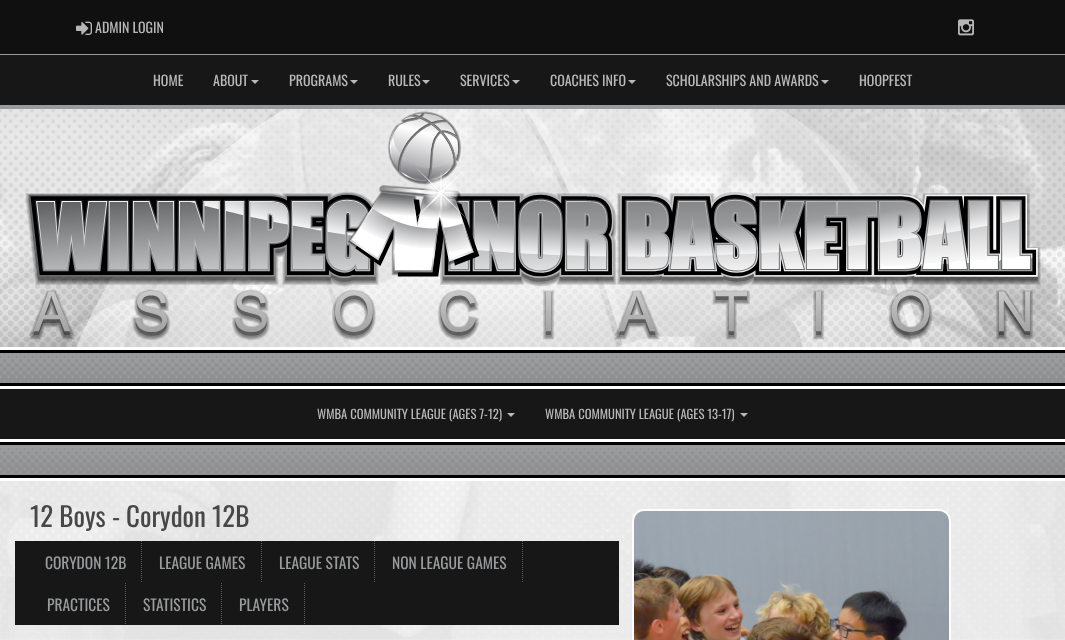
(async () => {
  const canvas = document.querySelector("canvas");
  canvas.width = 1065;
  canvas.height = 640;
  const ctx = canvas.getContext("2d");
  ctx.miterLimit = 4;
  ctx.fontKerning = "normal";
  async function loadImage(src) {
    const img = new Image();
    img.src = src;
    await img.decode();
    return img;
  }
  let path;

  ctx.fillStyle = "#ffffff";
  ctx.fillRect(0, 0, 1065, 640);
  ctx.fillStyle = "#9a9b9c";
  ctx.fillRect(0, 54, 1065, 1);
  ctx.fillStyle = "#101010";
  ctx.fillRect(0, 0, 1065, 54);
  ctx.drawImage(await loadImage("img/1.png"), 76, 21, 16, 14);
  ctx.drawImage(await loadImage("img/2.png"), 958, 19, 16, 17);
  ctx.fillStyle = "#171717";
  ctx.fillRect(0, 55, 1065, 50);
  ctx.fillStyle = "#9a9b9c";
  ctx.fillRect(0, 105, 1065, 4);
  ctx.fillStyle = "#b9b9b9";
  path = new Path2D("M251 80H259L255 84Z");
  ctx.fill(path);
  path = new Path2D("M350 80H358L354 84Z");
  ctx.fill(path);
  path = new Path2D("M422 80H430L426 84Z");
  ctx.fill(path);
  path = new Path2D("M512 80H520L516 84Z");
  ctx.fill(path);
  path = new Path2D("M628 80H636L632 84Z");
  ctx.fill(path);
  path = new Path2D("M821 80H829L825 84Z");
  ctx.fill(path);
  ctx.drawImage(await loadImage("img/3.png"), 0, 109, 1065, 531);
  ctx.drawImage(await loadImage("img/4.png"), 0, 109, 1065, 238);
  ctx.drawImage(await loadImage("img/5.png"), 25, 111, 1016, 230);
  ctx.fillStyle = "#9a9b9c";
  ctx.fillRect(0, 353, 1065, 30);
  ctx.drawImage(await loadImage("img/6.png"), 0, 347, 1065, 42);
  ctx.fillStyle = "#171717";
  ctx.fillRect(0, 389, 1065, 50);
  ctx.fillStyle = "#b9b9b9";
  path = new Path2D("M507 413H515L511 417Z");
  ctx.fill(path);
  path = new Path2D("M740 413H748L744 417Z");
  ctx.fill(path);
  ctx.fillStyle = "#9a9b9c";
  ctx.fillRect(0, 445, 1065, 30);
  ctx.drawImage(await loadImage("img/6.png"), 0, 439, 1065, 42);
  ctx.fillStyle = "rgba(255, 255, 255, 0.8)";
  ctx.fillRect(0, 481, 1065, 159);
  ctx.fillStyle = "#171717";
  ctx.fillRect(15, 541, 604, 84);
  path = new Path2D("M141.5 541V583");
  ctx.strokeStyle = "#5d5d5d";
  ctx.setLineDash([1, 1]);
  ctx.stroke(path);
  path = new Path2D("M261.5 541V583");
  ctx.stroke(path);
  path = new Path2D("M374.5 541V583");
  ctx.stroke(path);
  path = new Path2D("M522.5 541V583");
  ctx.stroke(path);
  path = new Path2D("M125.5 583V625");
  ctx.stroke(path);
  path = new Path2D("M221.5 583V625");
  ctx.stroke(path);
  path = new Path2D("M304.5 583V625");
  ctx.stroke(path);
  ctx.beginPath();
  ctx.roundRect(633, 510, 317, 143, 11);
  ctx.strokeStyle = "rgba(255, 255, 255, 0.9)";
  ctx.lineWidth = 2;
  ctx.setLineDash([]);
  ctx.stroke();
  ctx.drawImage(await loadImage("img/7.png"), 634, 511, 315, 129);
  ctx.font = "14px Oswald";
  ctx.fillStyle = "#b9b9b9";
  for (const [text, x, y] of [
    ["ADMIN LOGIN", 95, 33],
    ["HOME", 153, 86],
    ["ABOUT", 213, 86],
    ["PROGRAMS", 289, 86],
    ["RULES", 388, 86],
    ["SERVICES", 460, 86],
    ["COACHES INFO", 550, 86],
    ["SCHOLARSHIPS AND AWARDS", 666, 86],
    ["HOOPFEST", 859, 86],
  ]) {
    ctx.fillText(text, x, y);
  }
  ctx.font = "12.6px Oswald";
  ctx.fillText("WMBA COMMUNITY LEAGUE (AGES 7-12)", 317, 419);
  ctx.fillText("WMBA COMMUNITY LEAGUE (AGES 13-17)", 545, 419);
  ctx.font = "27px Oswald";
  ctx.fillStyle = "#474747";
  for (const [text, x, y] of [
    ["12 Boys", 30, 527],
    ["-", 112, 527],
    ["Corydon 12B", 126, 527],
  ]) {
    ctx.fillText(text, x, y);
  }
  ctx.font = "15.5px Oswald";
  ctx.fillStyle = "#9a9b9c";
  for (const [text, x, y] of [
    ["CORYDON 12B", 45, 569],
    ["LEAGUE GAMES", 159, 569],
    ["LEAGUE STATS", 279, 569],
    ["NON LEAGUE GAMES", 392, 569],
    ["PRACTICES", 47, 611],
    ["STATISTICS", 143, 611],
    ["PLAYERS", 239, 611],
  ]) {
    ctx.fillText(text, x, y);
  }
})();
